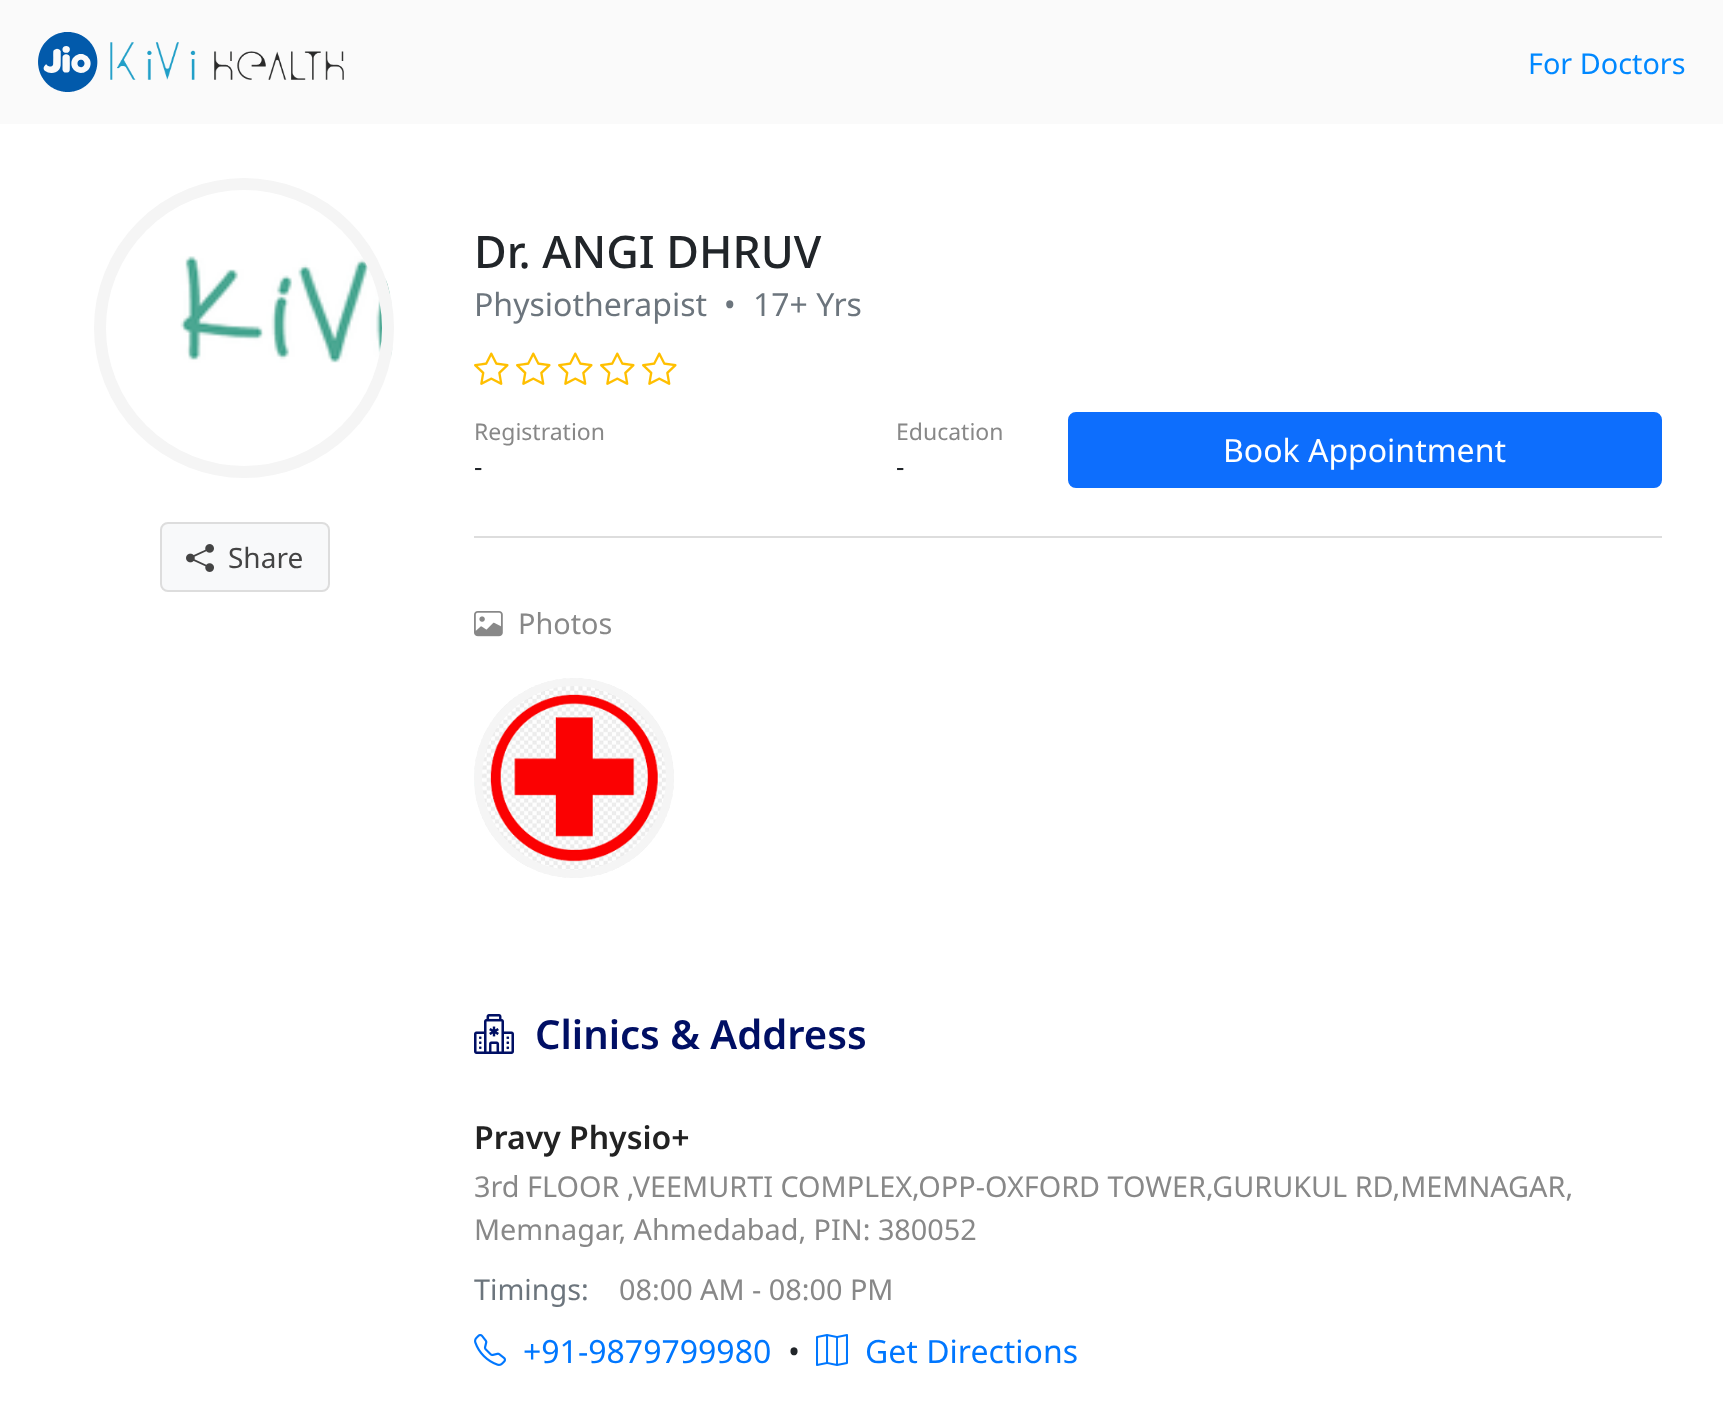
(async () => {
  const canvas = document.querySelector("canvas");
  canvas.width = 1723;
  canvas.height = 1412;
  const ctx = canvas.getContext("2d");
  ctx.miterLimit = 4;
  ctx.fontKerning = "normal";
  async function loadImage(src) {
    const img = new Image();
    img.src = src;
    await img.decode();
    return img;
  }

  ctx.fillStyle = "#ffffff";
  ctx.fillRect(0, 0, 1723, 1412);
  ctx.fillStyle = "#fafafa";
  ctx.fillRect(0, 0, 1723, 124);
  ctx.drawImage(await loadImage("img/1.png"), 38, 32, 306, 60);
  ctx.drawImage(await loadImage("img/2.png"), 180, 256, 213, 107);
  ctx.beginPath();
  ctx.arc(244, 328, 144, 0, Math.PI * 2);
  ctx.strokeStyle = "#f5f5f5";
  ctx.lineWidth = 12;
  ctx.stroke();
  ctx.fillStyle = "#f8f9fa";
  ctx.beginPath();
  ctx.roundRect(161, 523, 168, 68, 7);
  ctx.fill();
  ctx.strokeStyle = "#dddddd";
  ctx.lineWidth = 2;
  ctx.stroke();
  ctx.drawImage(await loadImage("img/3.png"), 186, 544, 28, 28);
  ctx.fillStyle = "#dddddd";
  ctx.fillRect(474, 536, 1188, 2);
  ctx.drawImage(await loadImage("img/4.png"), 474, 352, 35, 33);
  ctx.drawImage(await loadImage("img/4.png"), 516, 352, 35, 33);
  ctx.drawImage(await loadImage("img/4.png"), 558, 352, 35, 33);
  ctx.drawImage(await loadImage("img/4.png"), 600, 352, 35, 33);
  ctx.drawImage(await loadImage("img/4.png"), 642, 352, 35, 33);
  ctx.fillStyle = "#0d6efd";
  ctx.beginPath();
  ctx.roundRect(1069, 413, 592, 74, 7);
  ctx.fill();
  ctx.strokeStyle = "#0d6efd";
  ctx.stroke();
  ctx.drawImage(await loadImage("img/5.png"), 474, 611, 29, 26);
  ctx.drawImage(await loadImage("img/6.png"), 474, 678, 200, 200);
  ctx.beginPath();
  ctx.arc(574, 778, 96, 0, Math.PI * 2);
  ctx.strokeStyle = "#f5f5f5";
  ctx.lineWidth = 8;
  ctx.stroke();
  ctx.drawImage(await loadImage("img/7.png"), 474, 1014, 40, 40);
  ctx.drawImage(await loadImage("img/8.png"), 474, 1334, 32, 32);
  ctx.drawImage(await loadImage("img/9.png"), 816, 1334, 32, 32);
  ctx.font = "28.8px Noto Sans";
  ctx.fillStyle = "#0088ff";
  ctx.fillText("For Doctors", 1528, 74);
  ctx.font = "28px Noto Sans";
  ctx.fillStyle = "#444444";
  ctx.fillText("Share", 228, 568);
  ctx.font = "500 44.75px Noto Sans";
  ctx.fillStyle = "#212529";
  ctx.fillText("Dr. ANGI DHRUV", 474, 268);
  ctx.font = "32px Noto Sans";
  ctx.fillStyle = "#6c757d";
  ctx.fillText("Physiotherapist  •", 474, 316);
  ctx.fillText("17+ Yrs", 753, 316);
  ctx.font = "23px Noto Sans";
  ctx.fillStyle = "#888888";
  ctx.fillText("Registration", 474, 440);
  ctx.font = "26px Noto Sans";
  ctx.fillStyle = "#212529";
  ctx.fillText("-", 474, 476);
  ctx.font = "23px Noto Sans";
  ctx.fillStyle = "#888888";
  ctx.fillText("Education", 896, 440);
  ctx.font = "26px Noto Sans";
  ctx.fillStyle = "#212529";
  ctx.fillText("-", 896, 476);
  ctx.font = "32px Noto Sans";
  ctx.fillStyle = "#ffffff";
  ctx.fillText("Book Appointment", 1223, 462);
  ctx.font = "28.8px Noto Sans";
  ctx.fillStyle = "#888888";
  ctx.fillText("Photos", 518, 634);
  ctx.font = "600 40px Noto Sans";
  ctx.fillStyle = "#000f64";
  ctx.fillText("Clinics & Address", 535, 1049);
  ctx.font = "600 32px Noto Sans";
  ctx.fillStyle = "#222222";
  ctx.fillText("Pravy Physio+", 474, 1149);
  ctx.font = "28.8px Noto Sans";
  ctx.fillStyle = "#888888";
  ctx.fillText("3rd FLOOR ,VEEMURTI COMPLEX,OPP-OXFORD TOWER,GURUKUL RD,MEMNAGAR,", 474, 1197);
  ctx.fillText("Memnagar, Ahmedabad, PIN: 380052", 474, 1240);
  ctx.fillStyle = "#6c757d";
  ctx.fillText("Timings:", 474, 1300);
  ctx.fillStyle = "#888888";
  ctx.fillText("08:00 AM - 08:00 PM", 619, 1300);
  ctx.font = "32px Noto Sans";
  ctx.fillStyle = "#0077ff";
  ctx.fillText("+91-9879799980", 523, 1363);
  ctx.fillStyle = "#212529";
  ctx.fillText("•", 788, 1363);
  ctx.fillStyle = "#0077ff";
  ctx.fillText("Get Directions", 865, 1363);
})();
